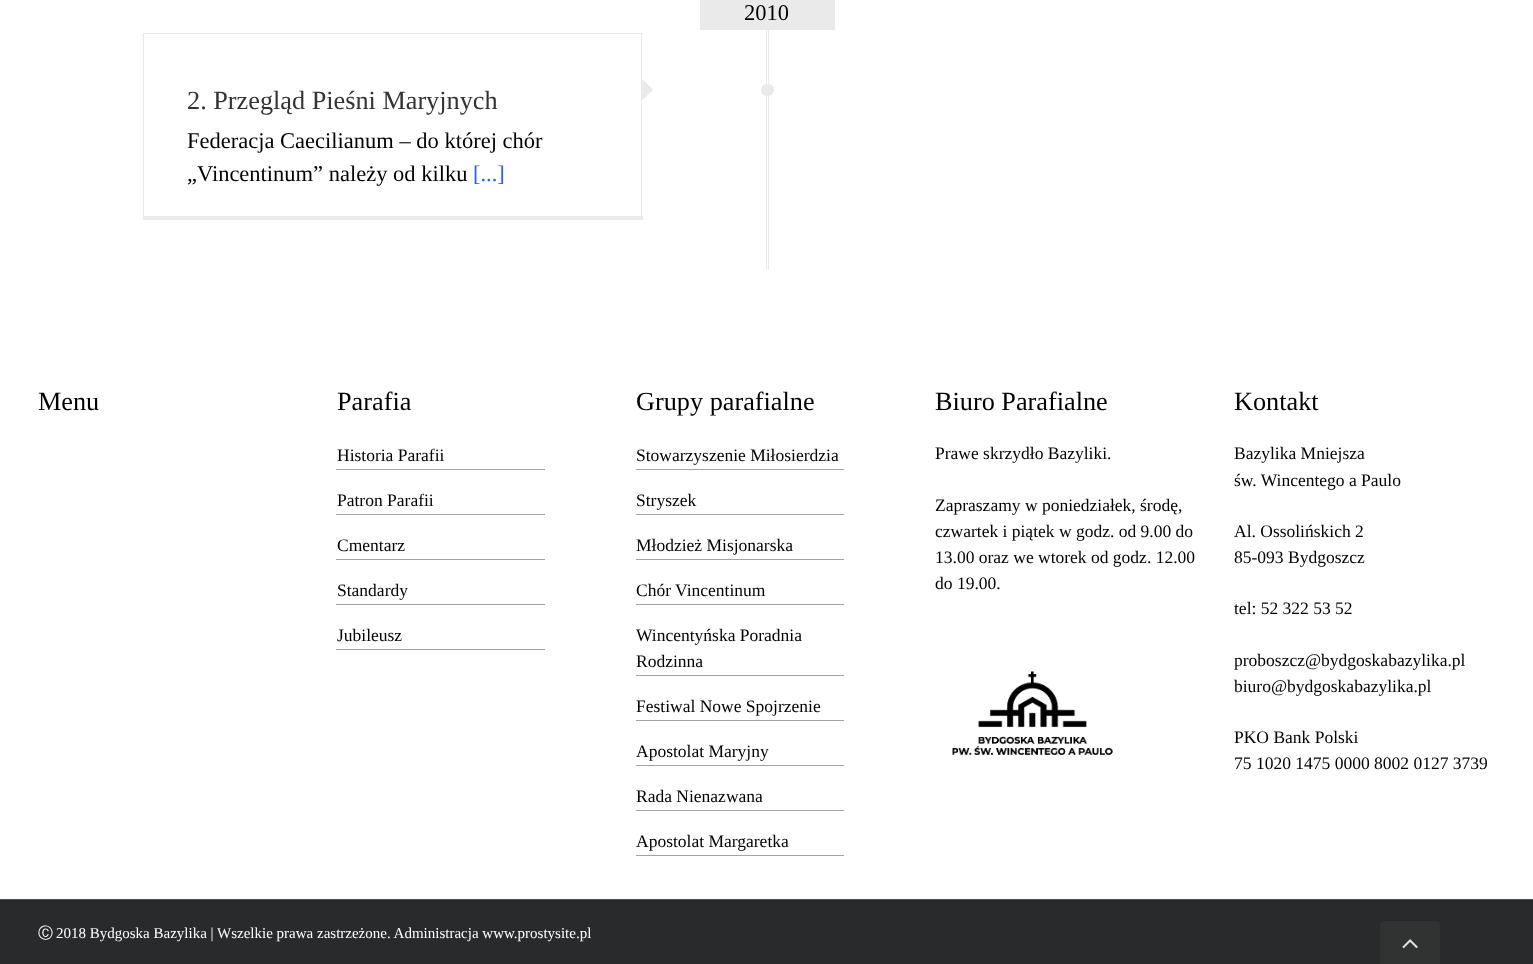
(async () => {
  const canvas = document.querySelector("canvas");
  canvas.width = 1533;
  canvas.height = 964;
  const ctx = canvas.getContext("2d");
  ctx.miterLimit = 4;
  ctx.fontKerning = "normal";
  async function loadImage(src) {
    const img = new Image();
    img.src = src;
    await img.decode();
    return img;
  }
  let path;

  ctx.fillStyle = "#ffffff";
  ctx.fillRect(0, 0, 1533, 964);
  for (const [x, y, w, h, color] of [
    [700, 0, 135, 30, "#ebeaea"],
    [143, 33, 500, 1, "#ebeaea"],
    [641, 33, 1, 187, "#ebeaea"],
    [143, 216, 500, 4, "#ebeaea"],
    [143, 33, 1, 187, "#ebeaea"],
  ]) {
    ctx.fillStyle = color;
    ctx.fillRect(x, y, w, h);
  }
  ctx.drawImage(await loadImage("img/1.png"), 642, 79, 11, 21);
  ctx.fillRect(768, 30, 1, 240);
  ctx.fillRect(766, 30, 1, 240);
  ctx.beginPath();
  ctx.roundRect(761, 84, 13, 12, 6);
  ctx.fill();
  for (const [x, y, w, h, color] of [
    [336, 469, 209, 1, "#a3a3a3"],
    [336, 514, 209, 1, "#a3a3a3"],
    [336, 559, 209, 1, "#a3a3a3"],
    [336, 604, 209, 1, "#a3a3a3"],
    [336, 649, 209, 1, "#a3a3a3"],
    [636, 469, 208, 1, "#a3a3a3"],
    [636, 514, 208, 1, "#a3a3a3"],
    [636, 559, 208, 1, "#a3a3a3"],
    [636, 604, 208, 1, "#a3a3a3"],
    [636, 675, 208, 1, "#a3a3a3"],
    [636, 720, 208, 1, "#a3a3a3"],
    [636, 765, 208, 1, "#a3a3a3"],
    [636, 810, 208, 1, "#a3a3a3"],
    [636, 855, 208, 1, "#a3a3a3"],
  ]) {
    ctx.fillStyle = color;
    ctx.fillRect(x, y, w, h);
  }
  ctx.drawImage(await loadImage("img/2.png"), 952, 671, 161, 84);
  ctx.fillStyle = "#282a2b";
  ctx.fillRect(0, 900, 1533, 64);
  ctx.fillStyle = "#4b4c4d";
  ctx.fillRect(0, 899, 1533, 1);
  ctx.fillStyle = "#313232";
  path = new Path2D("M1385 921H1435C1438 921 1440 923 1440 926V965H1380V926C1380 923 1382 921 1385 921Z");
  ctx.fill(path);
  ctx.drawImage(await loadImage("img/3.png"), 1402, 939, 16, 10);
  ctx.font = "22.5px Liberation Serif";
  ctx.fillStyle = "#000000";
  ctx.fillText("2010", 744, 20);
  ctx.font = "26.25px Liberation Serif";
  ctx.fillStyle = "#333333";
  ctx.fillText("2. Przegląd Pieśni Maryjnych", 187, 109);
  ctx.font = "22.5px Liberation Serif";
  ctx.fillStyle = "#000000";
  ctx.fillText("Federacja Caecilianum – do której chór", 187, 148);
  ctx.fillText("„Vincentinum” należy od kilku", 187, 181);
  ctx.fillStyle = "#2363f3";
  ctx.fillText("[...]", 473, 181);
  ctx.font = "26.25px Liberation Serif";
  ctx.fillStyle = "#000000";
  ctx.fillText("Menu", 38, 410);
  ctx.fillText("Parafia", 337, 410);
  ctx.font = "17.5px Liberation Serif";
  for (const [text, x, y] of [
    ["Historia Parafii", 337, 461],
    ["Patron Parafii", 337, 506],
    ["Cmentarz", 337, 551],
    ["Standardy", 337, 596],
    ["Jubileusz", 337, 641],
  ]) {
    ctx.fillText(text, x, y);
  }
  ctx.font = "26.25px Liberation Serif";
  ctx.fillText("Grupy parafialne", 636, 410);
  ctx.font = "17.5px Liberation Serif";
  for (const [text, x, y] of [
    ["Stowarzyszenie Miłosierdzia", 636, 461],
    ["Stryszek", 636, 506],
    ["Młodzież Misjonarska", 636, 551],
    ["Chór Vincentinum", 636, 596],
    ["Wincentyńska Poradnia", 636, 641],
    ["Rodzinna", 636, 667],
    ["Festiwal Nowe Spojrzenie", 636, 712],
    ["Apostolat Maryjny", 636, 757],
    ["Rada Nienazwana", 636, 802],
    ["Apostolat Margaretka", 636, 847],
  ]) {
    ctx.fillText(text, x, y);
  }
  ctx.font = "26.25px Liberation Serif";
  ctx.fillText("Biuro Parafialne", 935, 410);
  ctx.font = "17.5px Liberation Serif";
  for (const [text, x, y] of [
    ["Prawe skrzydło Bazyliki.", 935, 459],
    ["Zapraszamy w poniedziałek, środę,", 935, 511],
    ["czwartek i piątek w godz. od 9.00 do", 935, 537],
    ["13.00 oraz we wtorek od godz. 12.00", 935, 563],
    ["do 19.00.", 935, 589],
  ]) {
    ctx.fillText(text, x, y);
  }
  ctx.font = "26.25px Liberation Serif";
  ctx.fillText("Kontakt", 1234, 410);
  ctx.font = "17.5px Liberation Serif";
  for (const [text, x, y] of [
    ["Bazylika Mniejsza", 1234, 459],
    ["św. Wincentego a Paulo", 1234, 486],
    ["Al. Ossolińskich 2", 1234, 537],
    ["85-093 Bydgoszcz", 1234, 563],
    ["tel: 52 322 53 52", 1234, 614],
    ["proboszcz@bydgoskabazylika.pl", 1234, 666],
    ["biuro@bydgoskabazylika.pl", 1234, 692],
    ["PKO Bank Polski", 1234, 743],
    ["75 1020 1475 0000 8002 0127 3739", 1234, 769],
  ]) {
    ctx.fillText(text, x, y);
  }
  ctx.font = "500 15px WenQuanYi Zen Hei";
  ctx.fillStyle = "#ffffff";
  ctx.fillText("Ⓒ", 38, 938);
  ctx.font = "15px Liberation Serif";
  ctx.fillText("2018 Bydgoska Bazylika | Wszelkie prawa zastrzeżone. Administracja www.prostysite.pl", 56, 938);
})();
